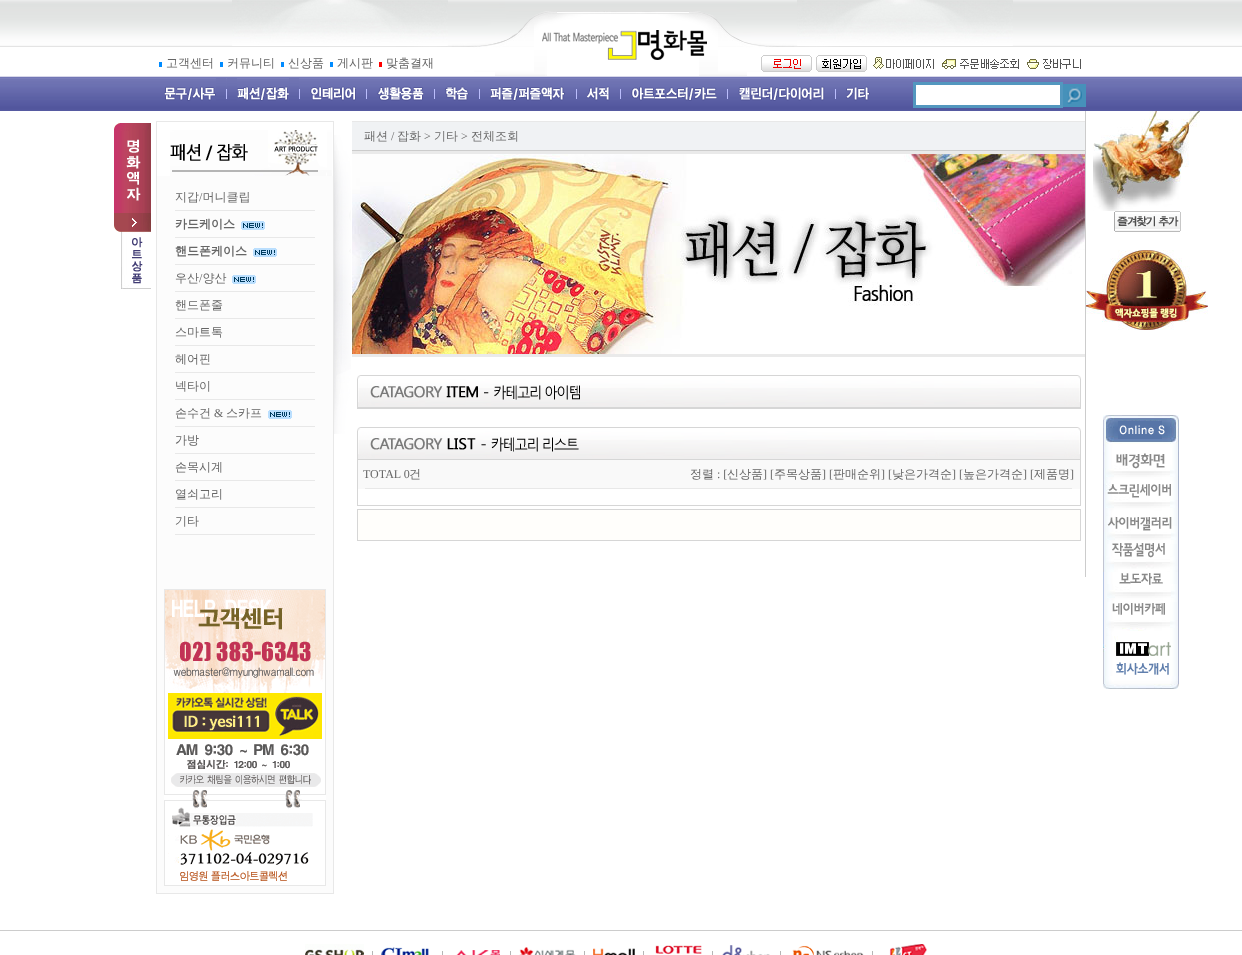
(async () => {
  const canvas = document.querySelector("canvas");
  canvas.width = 1242;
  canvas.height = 955;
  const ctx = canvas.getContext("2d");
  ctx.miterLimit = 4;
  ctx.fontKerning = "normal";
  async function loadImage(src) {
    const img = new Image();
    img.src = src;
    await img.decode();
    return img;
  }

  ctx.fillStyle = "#ffffff";
  ctx.fillRect(0, 0, 1242, 955);
  ctx.drawImage(await loadImage("img/1.png"), 0, 0, 1242, 47);
  ctx.drawImage(await loadImage("img/2.png"), 232, 0, 273, 76);
  for (const [x, y, w, h, color] of [
    [474, 72, 21, 4, "#ffffff"],
    [159, 62, 3, 5, "#008bff"],
    [220, 62, 3, 5, "#008bff"],
    [281, 62, 3, 5, "#008bff"],
    [330, 62, 3, 5, "#008bff"],
    [379, 62, 3, 5, "#ff0000"],
  ]) {
    ctx.fillStyle = color;
    ctx.fillRect(x, y, w, h);
  }
  ctx.drawImage(await loadImage("img/3.png"), 505, 11, 232, 65);
  ctx.drawImage(await loadImage("img/4.png"), 737, 0, 276, 76);
  ctx.fillStyle = "#ffffff";
  ctx.fillRect(747, 72, 25, 4);
  ctx.drawImage(await loadImage("img/5.png"), 761, 55, 51, 17);
  ctx.drawImage(await loadImage("img/6.png"), 816, 55, 51, 17);
  ctx.drawImage(await loadImage("img/7.png"), 873, 57, 61, 12);
  ctx.drawImage(await loadImage("img/8.png"), 942, 59, 77, 10);
  ctx.drawImage(await loadImage("img/9.png"), 1027, 59, 54, 10);
  ctx.drawImage(await loadImage("img/10.png"), 114, 123, 37, 109);
  ctx.drawImage(await loadImage("img/11.png"), 121, 232, 30, 57);
  ctx.drawImage(await loadImage("img/12.png"), 1093, 111, 107, 100);
  ctx.drawImage(await loadImage("img/13.png"), 1114, 211, 67, 21);
  ctx.drawImage(await loadImage("img/14.png"), 1086, 250, 122, 80);
  ctx.drawImage(await loadImage("img/15.png"), 0, 76, 1242, 35);
  ctx.drawImage(await loadImage("img/16.png"), 164, 78, 62, 23);
  ctx.fillStyle = "#bbbefc";
  ctx.fillRect(226, 89, 1, 10);
  ctx.drawImage(await loadImage("img/17.png"), 227, 78, 72, 23);
  ctx.fillRect(299, 89, 1, 10);
  ctx.drawImage(await loadImage("img/18.png"), 310, 86, 46, 15);
  ctx.fillRect(366, 89, 1, 10);
  ctx.drawImage(await loadImage("img/19.png"), 377, 86, 47, 15);
  ctx.fillRect(434, 89, 1, 10);
  ctx.drawImage(await loadImage("img/20.png"), 445, 86, 24, 15);
  ctx.fillRect(479, 89, 1, 10);
  ctx.drawImage(await loadImage("img/21.png"), 490, 86, 75, 15);
  ctx.fillRect(576, 89, 1, 10);
  ctx.drawImage(await loadImage("img/22.png"), 587, 86, 23, 15);
  ctx.fillRect(620, 89, 1, 10);
  ctx.drawImage(await loadImage("img/23.png"), 631, 86, 86, 15);
  ctx.fillRect(727, 89, 1, 10);
  ctx.drawImage(await loadImage("img/24.png"), 738, 86, 87, 15);
  ctx.fillRect(835, 89, 1, 10);
  ctx.drawImage(await loadImage("img/25.png"), 846, 86, 24, 15);
  ctx.fillStyle = "#ffffff";
  ctx.beginPath();
  ctx.rect(914.5, 83.5, 147, 23);
  ctx.fill();
  ctx.strokeStyle = "#5397bf";
  ctx.lineWidth = 3;
  ctx.stroke();
  ctx.drawImage(await loadImage("img/26.png"), 1063, 84, 23, 23);
  ctx.fillStyle = "#e8e8e8";
  ctx.fillRect(156, 121, 178, 773);
  ctx.fillStyle = "#ffffff";
  ctx.fillRect(157, 122, 176, 54);
  ctx.drawImage(await loadImage("img/27.png"), 170, 130, 162, 46);
  ctx.fillStyle = "#fcfcfc";
  ctx.fillRect(157, 176, 176, 717);
  ctx.fillStyle = "#e8e8e8";
  ctx.fillRect(175, 210, 140, 1);
  ctx.drawImage(await loadImage("img/28.png"), 241, 221, 24, 9);
  ctx.fillRect(175, 237, 140, 1);
  ctx.drawImage(await loadImage("img/28.png"), 253, 248, 24, 9);
  ctx.fillRect(175, 264, 140, 1);
  ctx.drawImage(await loadImage("img/28.png"), 232, 275, 24, 9);
  for (const [x, y, w, h, color] of [
    [175, 291, 140, 1, "#e8e8e8"],
    [175, 318, 140, 1, "#e8e8e8"],
    [175, 345, 140, 1, "#e8e8e8"],
    [175, 372, 140, 1, "#e8e8e8"],
    [175, 399, 140, 1, "#e8e8e8"],
  ]) {
    ctx.fillStyle = color;
    ctx.fillRect(x, y, w, h);
  }
  ctx.drawImage(await loadImage("img/28.png"), 268, 410, 24, 9);
  for (const [x, y, w, h, color] of [
    [175, 426, 140, 1, "#e8e8e8"],
    [175, 453, 140, 1, "#e8e8e8"],
    [175, 480, 140, 1, "#e8e8e8"],
    [175, 507, 140, 1, "#e8e8e8"],
    [175, 534, 140, 1, "#e8e8e8"],
  ]) {
    ctx.fillStyle = color;
    ctx.fillRect(x, y, w, h);
  }
  ctx.drawImage(await loadImage("img/29.png"), 164, 589, 162, 297);
  ctx.drawImage(await loadImage("img/30.png"), 334, 135, 17, 299);
  for (const [x, y, w, h, color] of [
    [352, 121, 733, 1, "#e8e8e8"],
    [352, 122, 733, 28, "#f0f2f4"],
    [352, 150, 733, 1, "#cccccc"],
    [352, 151, 733, 3, "#eaeaea"],
  ]) {
    ctx.fillStyle = color;
    ctx.fillRect(x, y, w, h);
  }
  ctx.drawImage(await loadImage("img/31.png"), 352, 154, 733, 200);
  ctx.fillRect(352, 354, 733, 3);
  ctx.drawImage(await loadImage("img/32.png"), 357, 375, 724, 32);
  ctx.fillStyle = "#d6d6d6";
  ctx.fillRect(357, 407, 724, 2);
  ctx.drawImage(await loadImage("img/33.png"), 357, 427, 724, 32);
  for (const [x, y, w, h, color] of [
    [357, 459, 724, 47, "#d6d6d6"],
    [358, 460, 722, 29, "#f9f9f9"],
    [365, 488, 707, 1, "#e8e8e8"],
    [358, 489, 722, 16, "#ffffff"],
    [357, 509, 724, 32, "#d6d6d6"],
    [358, 510, 722, 30, "#fffefb"],
    [1085, 111, 1, 466, "#cccccc"],
  ]) {
    ctx.fillStyle = color;
    ctx.fillRect(x, y, w, h);
  }
  ctx.drawImage(await loadImage("img/34.png"), 1103, 415, 76, 27);
  ctx.drawImage(await loadImage("img/35.png"), 1103, 442, 76, 29);
  ctx.drawImage(await loadImage("img/36.png"), 1103, 471, 76, 31);
  ctx.drawImage(await loadImage("img/37.png"), 1103, 502, 76, 32);
  ctx.drawImage(await loadImage("img/38.png"), 1103, 534, 76, 28);
  ctx.drawImage(await loadImage("img/39.png"), 1103, 562, 76, 30);
  ctx.drawImage(await loadImage("img/40.png"), 1103, 592, 76, 30);
  ctx.drawImage(await loadImage("img/41.png"), 1103, 622, 76, 67);
  ctx.fillRect(0, 930, 1242, 1);
  ctx.drawImage(await loadImage("img/42.png"), 305, 944, 59, 11);
  ctx.fillStyle = "#b6b6b6";
  ctx.fillRect(372, 951, 1, 4);
  ctx.drawImage(await loadImage("img/43.png"), 381, 947, 48, 8);
  ctx.fillRect(442, 951, 1, 4);
  ctx.drawImage(await loadImage("img/44.png"), 456, 950, 44, 5);
  ctx.fillRect(510, 951, 1, 4);
  ctx.drawImage(await loadImage("img/45.png"), 519, 947, 57, 8);
  ctx.fillRect(584, 951, 1, 4);
  ctx.drawImage(await loadImage("img/46.png"), 593, 948, 42, 7);
  ctx.fillRect(643, 951, 1, 4);
  ctx.drawImage(await loadImage("img/47.png"), 655, 945, 47, 10);
  ctx.fillRect(712, 951, 1, 4);
  ctx.drawImage(await loadImage("img/48.png"), 722, 945, 48, 10);
  ctx.fillRect(780, 951, 1, 4);
  ctx.drawImage(await loadImage("img/49.png"), 792, 945, 72, 10);
  ctx.fillRect(872, 951, 1, 4);
  ctx.drawImage(await loadImage("img/50.png"), 889, 944, 38, 11);
  ctx.font = "500 12px WenQuanYi Zen Hei";
  ctx.fillStyle = "#666666";
  for (const [text, x, y] of [
    ["고객센터", 166, 67],
    ["커뮤니티", 227, 67],
    ["신상품", 288, 67],
    ["게시판", 337, 67],
    ["맞춤결재", 386, 67],
    ["지갑 머니클립", 175, 201],
  ]) {
    ctx.fillText(text, x, y);
  }
  ctx.font = "12px Liberation Serif";
  ctx.fillText("/", 199, 201);
  ctx.font = "bold 12px WenQuanYi Zen Hei";
  ctx.fillText("카드케이스", 175, 228);
  ctx.fillText("핸드폰케이스", 175, 255);
  ctx.font = "500 12px WenQuanYi Zen Hei";
  ctx.fillText("우산 양산", 175, 282);
  ctx.font = "12px Liberation Serif";
  ctx.fillText("/", 199, 282);
  ctx.font = "500 12px WenQuanYi Zen Hei";
  for (const [text, x, y] of [
    ["핸드폰줄", 175, 309],
    ["스마트톡", 175, 336],
    ["헤어핀", 175, 363],
    ["넥타이", 175, 390],
    ["손수건", 175, 417],
  ]) {
    ctx.fillText(text, x, y);
  }
  ctx.font = "12px Liberation Serif";
  ctx.fillText("&", 214, 417);
  ctx.font = "500 12px WenQuanYi Zen Hei";
  for (const [text, x, y] of [
    ["스카프", 226, 417],
    ["가방", 175, 444],
    ["손목시계", 175, 471],
    ["열쇠고리", 175, 498],
    ["기타", 175, 525],
  ]) {
    ctx.fillText(text, x, y);
  }
  ctx.fillStyle = "#6c6c6c";
  ctx.fillText("패션", 364, 140);
  ctx.font = "12px Liberation Serif";
  ctx.fillText("/", 391, 140);
  ctx.font = "500 12px WenQuanYi Zen Hei";
  ctx.fillText("잡화", 397, 140);
  ctx.font = "12px Liberation Serif";
  ctx.fillStyle = "#666666";
  ctx.fillText(">", 424, 140);
  ctx.font = "500 12px WenQuanYi Zen Hei";
  ctx.fillStyle = "#6c6c6c";
  ctx.fillText("기타", 434, 140);
  ctx.font = "12px Liberation Serif";
  ctx.fillStyle = "#666666";
  ctx.fillText(">", 461, 140);
  ctx.font = "500 12px WenQuanYi Zen Hei";
  ctx.fillStyle = "#6c6c6c";
  ctx.fillText("전체조회", 471, 140);
  ctx.font = "12px Liberation Serif";
  ctx.fillStyle = "#666666";
  ctx.fillText("TOTAL 0", 363, 478);
  ctx.font = "500 12px WenQuanYi Zen Hei";
  ctx.fillText("건", 409, 478);
  ctx.fillText("정렬", 690, 478);
  ctx.font = "12px Liberation Serif";
  ctx.fillText(": [", 717, 478);
  ctx.font = "500 12px WenQuanYi Zen Hei";
  ctx.fillText("신상품", 727, 478);
  ctx.font = "12px Liberation Serif";
  ctx.fillText("] [", 763, 478);
  ctx.font = "500 12px WenQuanYi Zen Hei";
  ctx.fillText("주목상품", 774, 478);
  ctx.font = "12px Liberation Serif";
  ctx.fillText("] [", 822, 478);
  ctx.font = "500 12px WenQuanYi Zen Hei";
  ctx.fillText("판매순위", 833, 478);
  ctx.font = "12px Liberation Serif";
  ctx.fillText("] [", 881, 478);
  ctx.font = "500 12px WenQuanYi Zen Hei";
  ctx.fillText("낮은가격순", 892, 478);
  ctx.font = "12px Liberation Serif";
  ctx.fillText("] [", 952, 478);
  ctx.font = "500 12px WenQuanYi Zen Hei";
  ctx.fillText("높은가격순", 963, 478);
  ctx.font = "12px Liberation Serif";
  ctx.fillText("] [", 1023, 478);
  ctx.font = "500 12px WenQuanYi Zen Hei";
  ctx.fillText("제품명", 1034, 478);
  ctx.font = "12px Liberation Serif";
  ctx.fillText("]", 1070, 478);
})();
